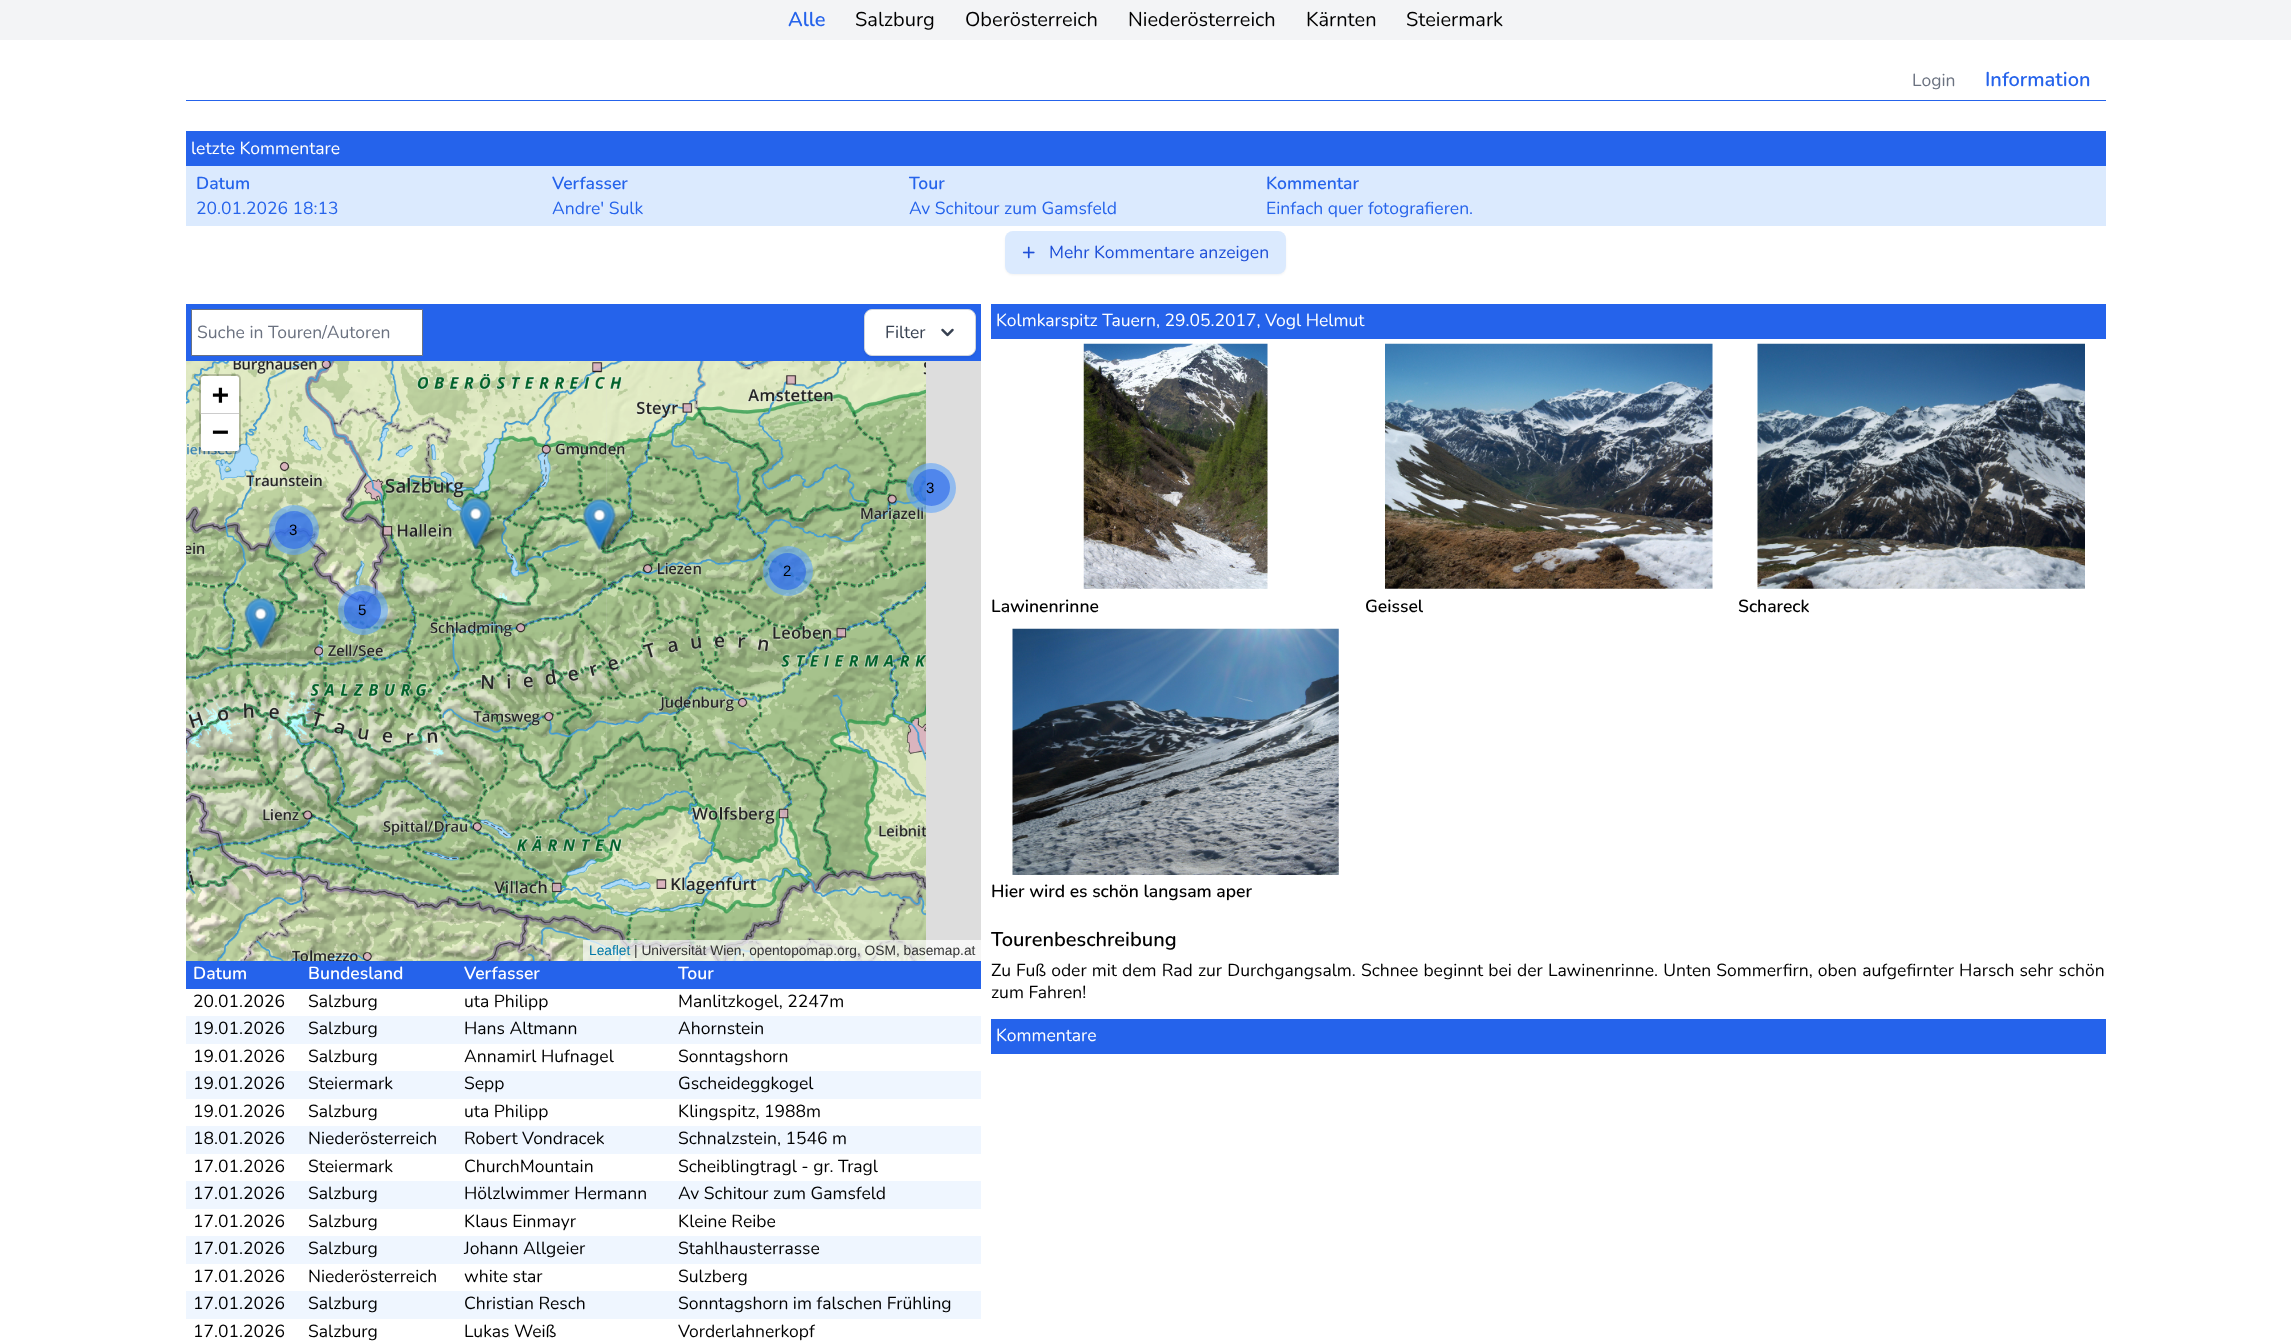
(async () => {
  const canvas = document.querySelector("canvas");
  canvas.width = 2291;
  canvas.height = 1342;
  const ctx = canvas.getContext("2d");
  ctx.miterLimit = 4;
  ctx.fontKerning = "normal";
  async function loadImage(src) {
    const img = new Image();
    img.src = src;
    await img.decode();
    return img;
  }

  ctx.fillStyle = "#ffffff";
  ctx.fillRect(0, 0, 2291, 1342);
  for (const [x, y, w, h, color] of [
    [0, 0, 2291, 40, "#f3f4f6"],
    [186, 100, 1920, 1, "#2563eb"],
    [186, 131, 1920, 35, "#2563eb"],
    [186, 166, 1920, 60, "#dbeafe"],
  ]) {
    ctx.fillStyle = color;
    ctx.fillRect(x, y, w, h);
  }
  ctx.fillStyle = "rgba(0, 0, 0, 0.05)";
  ctx.filter = "blur(1px)";
  ctx.beginPath();
  ctx.roundRect(1005, 233, 281, 42, 8);
  ctx.fill();
  ctx.filter = "none";
  ctx.fillStyle = "#dbeafe";
  ctx.beginPath();
  ctx.roundRect(1005, 231, 281, 43, 8);
  ctx.fill();
  ctx.drawImage(await loadImage("img/1.png"), 1022, 246, 13, 13);
  ctx.fillStyle = "#2563eb";
  ctx.fillRect(186, 304, 795, 57);
  ctx.fillStyle = "#ffffff";
  ctx.beginPath();
  ctx.rect(191.5, 309.5, 231, 46);
  ctx.fill();
  ctx.strokeStyle = "#6b7280";
  ctx.stroke();
  ctx.fillStyle = "rgba(0, 0, 0, 0.05)";
  ctx.filter = "blur(1px)";
  ctx.beginPath();
  ctx.roundRect(864, 310, 112, 48, 8);
  ctx.fill();
  ctx.filter = "none";
  ctx.fillStyle = "#ffffff";
  ctx.beginPath();
  ctx.roundRect(864.5, 309.5, 111, 46, 7.5);
  ctx.fill();
  ctx.strokeStyle = "#d1d5db";
  ctx.stroke();
  ctx.drawImage(await loadImage("img/2.png"), 941, 328, 13, 9);
  ctx.fillStyle = "#dddddd";
  ctx.fillRect(286, 361, 695, 600);
  ctx.drawImage(await loadImage("img/3.png"), 186, 361, 100, 64);
  ctx.drawImage(await loadImage("img/6.png"), 186, 425, 100, 320);
  ctx.beginPath();
  ctx.roundRect(200.5, 375.5, 39, 77, 3.5);
  ctx.strokeStyle = "rgba(0, 0, 0, 0.2)";
  ctx.lineWidth = 3;
  ctx.stroke();
  ctx.fillStyle = "#ffffff";
  ctx.beginPath();
  ctx.roundRect(201, 376, 38, 37, [2.5, 2.5, 0, 0]);
  ctx.fill();
  ctx.fillStyle = "#cccccc";
  ctx.fillRect(201, 413, 38, 1);
  ctx.fillStyle = "#ffffff";
  ctx.beginPath();
  ctx.roundRect(201, 414, 38, 37, [0, 0, 2.5, 2.5]);
  ctx.fill();
  ctx.drawImage(await loadImage("img/10.png"), 286, 745, 320, 216);
  ctx.drawImage(await loadImage("img/11.png"), 606, 745, 320, 216);
  ctx.fillStyle = "rgba(255, 255, 255, 0.7)";
  ctx.fillRect(583, 940, 398, 21);
  ctx.drawImage(await loadImage("img/4.png"), 286, 361, 320, 64);
  ctx.drawImage(await loadImage("img/5.png"), 606, 361, 320, 64);
  ctx.drawImage(await loadImage("img/7.png"), 286, 425, 320, 320);
  ctx.drawImage(await loadImage("img/8.png"), 606, 425, 320, 320);
  ctx.drawImage(await loadImage("img/9.png"), 186, 745, 100, 216);
  ctx.fillStyle = "rgba(96, 165, 250, 0.6)";
  ctx.beginPath();
  ctx.arc(931, 488, 25, 0, Math.PI * 2);
  ctx.fill();
  ctx.fillStyle = "rgba(37, 99, 235, 0.6)";
  ctx.beginPath();
  ctx.arc(931.5, 487.5, 18.5, 0, Math.PI * 2);
  ctx.fill();
  ctx.fillStyle = "rgba(96, 165, 250, 0.6)";
  ctx.beginPath();
  ctx.arc(294, 530, 25, 0, Math.PI * 2);
  ctx.fill();
  ctx.fillStyle = "rgba(37, 99, 235, 0.6)";
  ctx.beginPath();
  ctx.arc(294, 530, 19, 0, Math.PI * 2);
  ctx.fill();
  ctx.drawImage(await loadImage("img/15.png"), 471, 513, 37, 36);
  ctx.drawImage(await loadImage("img/12.png"), 459, 497, 33, 53);
  ctx.drawImage(await loadImage("img/16.png"), 595, 515, 37, 36);
  ctx.drawImage(await loadImage("img/13.png"), 583, 498, 33, 53);
  ctx.fillStyle = "rgba(96, 165, 250, 0.6)";
  ctx.beginPath();
  ctx.arc(788, 571, 25, 0, Math.PI * 2);
  ctx.fill();
  ctx.fillStyle = "rgba(37, 99, 235, 0.6)";
  ctx.beginPath();
  ctx.arc(787.5, 571.5, 18.5, 0, Math.PI * 2);
  ctx.fill();
  ctx.drawImage(await loadImage("img/17.png"), 256, 613, 37, 36);
  ctx.drawImage(await loadImage("img/14.png"), 244, 597, 33, 53);
  ctx.fillStyle = "rgba(96, 165, 250, 0.6)";
  ctx.beginPath();
  ctx.arc(363, 610, 25, 0, Math.PI * 2);
  ctx.fill();
  ctx.fillStyle = "rgba(37, 99, 235, 0.6)";
  ctx.beginPath();
  ctx.roundRect(344, 591, 37, 38, 18.5);
  ctx.fill();
  for (const [x, y, w, h, color] of [
    [186, 961, 795, 28, "#2563eb"],
    [186, 1016, 795, 28, "#eff6ff"],
    [186, 1071, 795, 28, "#eff6ff"],
    [186, 1126, 795, 28, "#eff6ff"],
    [186, 1181, 795, 28, "#eff6ff"],
    [186, 1236, 795, 28, "#eff6ff"],
    [186, 1291, 795, 28, "#eff6ff"],
    [991, 304, 1115, 35, "#2563eb"],
  ]) {
    ctx.fillStyle = color;
    ctx.fillRect(x, y, w, h);
  }
  ctx.drawImage(await loadImage("img/18.png"), 1083, 343, 185, 246);
  ctx.drawImage(await loadImage("img/19.png"), 1385, 343, 328, 246);
  ctx.drawImage(await loadImage("img/20.png"), 1757, 343, 328, 246);
  ctx.drawImage(await loadImage("img/21.png"), 1012, 628, 327, 247);
  ctx.fillRect(991, 1019, 1115, 35);
  ctx.font = "200 20px Nunito";
  ctx.fillText("Alle", 788, 26);
  ctx.font = "200 20px 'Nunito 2'";
  ctx.fillStyle = "#000000";
  for (const [text, x, y] of [
    ["Salzburg", 855, 26],
    ["Oberösterreich", 965, 26],
    ["Niederösterreich", 1128, 26],
    ["Kärnten", 1306, 26],
    ["Steiermark", 1406, 26],
  ]) {
    ctx.fillText(text, x, y);
  }
  ctx.font = "200 17.5px 'Nunito 2'";
  ctx.fillStyle = "#6b7280";
  ctx.fillText("Login", 1912, 86);
  ctx.font = "200 20px Nunito";
  ctx.fillStyle = "#2563eb";
  ctx.fillText("Information", 1985, 86);
  ctx.font = "200 17.5px 'Nunito 2'";
  ctx.fillStyle = "#ffffff";
  ctx.fillText("letzte Kommentare", 191, 154);
  ctx.font = "200 17.5px Nunito";
  ctx.fillStyle = "#2563eb";
  ctx.fillText("Datum", 196, 189);
  ctx.font = "200 17.5px 'Nunito 2'";
  ctx.fillText("20.01.2026 18:13", 196, 214);
  ctx.font = "200 17.5px Nunito";
  ctx.fillText("Verfasser", 552, 189);
  ctx.font = "200 17.5px 'Nunito 2'";
  ctx.fillText("Andre' Sulk", 552, 214);
  ctx.font = "200 17.5px Nunito";
  ctx.fillText("Tour", 909, 189);
  ctx.font = "200 17.5px 'Nunito 2'";
  ctx.fillText("Av Schitour zum Gamsfeld", 909, 214);
  ctx.font = "200 17.5px Nunito";
  ctx.fillText("Kommentar", 1266, 189);
  ctx.font = "200 17.5px 'Nunito 2'";
  ctx.fillText("Einfach quer fotografieren.", 1266, 214);
  ctx.fillStyle = "#1d4ed8";
  ctx.fillText("Mehr Kommentare anzeigen", 1049, 258);
  ctx.fillStyle = "#6b7280";
  ctx.fillText("Suche in Touren/Autoren", 197, 338);
  ctx.fillStyle = "#374151";
  ctx.fillText("Filter", 885, 338);
  ctx.font = "bold 28px DejaVu Sans Mono";
  ctx.fillStyle = "#000000";
  ctx.fillText("+", 212, 404);
  ctx.fillText("−", 212, 441);
  ctx.font = "13.75px Liberation Sans";
  ctx.fillStyle = "#0078a8";
  ctx.fillText("Leaflet", 589, 955);
  ctx.fillStyle = "#333333";
  ctx.fillText("| Universität Wien, opentopomap.org, OSM, basemap.at", 634, 955);
  ctx.font = "15px Liberation Sans";
  ctx.fillStyle = "#000000";
  for (const [text, x, y] of [
    ["3", 926, 493],
    ["3", 289, 535],
    ["2", 783, 576],
    ["5", 358, 615],
  ]) {
    ctx.fillText(text, x, y);
  }
  ctx.font = "200 17.5px Nunito";
  ctx.fillStyle = "#ffffff";
  for (const [text, x, y] of [
    ["Datum", 193, 979],
    ["Bundesland", 308, 979],
    ["Verfasser", 464, 979],
    ["Tour", 678, 979],
  ]) {
    ctx.fillText(text, x, y);
  }
  ctx.font = "200 17.5px 'Nunito 2'";
  ctx.fillStyle = "#000000";
  for (const [text, x, y] of [
    ["20.01.2026", 193, 1007],
    ["Salzburg", 308, 1007],
    ["uta Philipp", 464, 1007],
    ["Manlitzkogel, 2247m", 678, 1007],
    ["19.01.2026", 193, 1034],
    ["Salzburg", 308, 1034],
    ["Hans Altmann", 464, 1034],
    ["Ahornstein", 678, 1034],
    ["19.01.2026", 193, 1062],
    ["Salzburg", 308, 1062],
    ["Annamirl Hufnagel", 464, 1062],
    ["Sonntagshorn", 678, 1062],
    ["19.01.2026", 193, 1089],
    ["Steiermark", 308, 1089],
    ["Sepp", 464, 1089],
    ["Gscheideggkogel", 678, 1089],
    ["19.01.2026", 193, 1117],
    ["Salzburg", 308, 1117],
    ["uta Philipp", 464, 1117],
    ["Klingspitz, 1988m", 678, 1117],
    ["18.01.2026", 193, 1144],
    ["Niederösterreich", 308, 1144],
    ["Robert Vondracek", 464, 1144],
    ["Schnalzstein, 1546 m", 678, 1144],
    ["17.01.2026", 193, 1172],
    ["Steiermark", 308, 1172],
    ["ChurchMountain", 464, 1172],
    ["Scheiblingtragl - gr. Tragl", 678, 1172],
    ["17.01.2026", 193, 1199],
    ["Salzburg", 308, 1199],
    ["Hölzlwimmer Hermann", 464, 1199],
    ["Av Schitour zum Gamsfeld", 678, 1199],
    ["17.01.2026", 193, 1227],
    ["Salzburg", 308, 1227],
    ["Klaus Einmayr", 464, 1227],
    ["Kleine Reibe", 678, 1227],
    ["17.01.2026", 193, 1254],
    ["Salzburg", 308, 1254],
    ["Johann Allgeier", 464, 1254],
    ["Stahlhausterrasse", 678, 1254],
    ["17.01.2026", 193, 1282],
    ["Niederösterreich", 308, 1282],
    ["white star", 464, 1282],
    ["Sulzberg", 678, 1282],
    ["17.01.2026", 193, 1309],
    ["Salzburg", 308, 1309],
    ["Christian Resch", 464, 1309],
    ["Sonntagshorn im falschen Frühling", 678, 1309],
    ["17.01.2026", 193, 1337],
    ["Salzburg", 308, 1337],
    ["Lukas Weiß", 464, 1337],
    ["Vorderlahnerkopf", 678, 1337],
  ]) {
    ctx.fillText(text, x, y);
  }
  ctx.fillStyle = "#ffffff";
  ctx.fillText("Kolmkarspitz Tauern, 29.05.2017, Vogl Helmut", 996, 326);
  ctx.font = "200 17.5px Nunito";
  ctx.fillStyle = "#000000";
  for (const [text, x, y] of [
    ["Lawinenrinne", 991, 612],
    ["Geissel", 1365, 612],
    ["Schareck", 1738, 612],
    ["Hier wird es schön langsam aper", 991, 897],
  ]) {
    ctx.fillText(text, x, y);
  }
  ctx.font = "200 20px Nunito";
  ctx.fillText("Tourenbeschreibung", 991, 946);
  ctx.wordSpacing = "0.6px";
  ctx.font = "200 17.5px 'Nunito 2'";
  ctx.fillText("Zu Fuß oder mit dem Rad zur Durchgangsalm. Schnee beginnt bei der Lawinenrinne. Unten Sommerfirn, oben aufgefirnter Harsch sehr schön", 991, 976);
  ctx.wordSpacing = "0px";
  ctx.fillText("zum Fahren!", 991, 998);
  ctx.fillStyle = "#ffffff";
  ctx.fillText("Kommentare", 996, 1041);
})();
